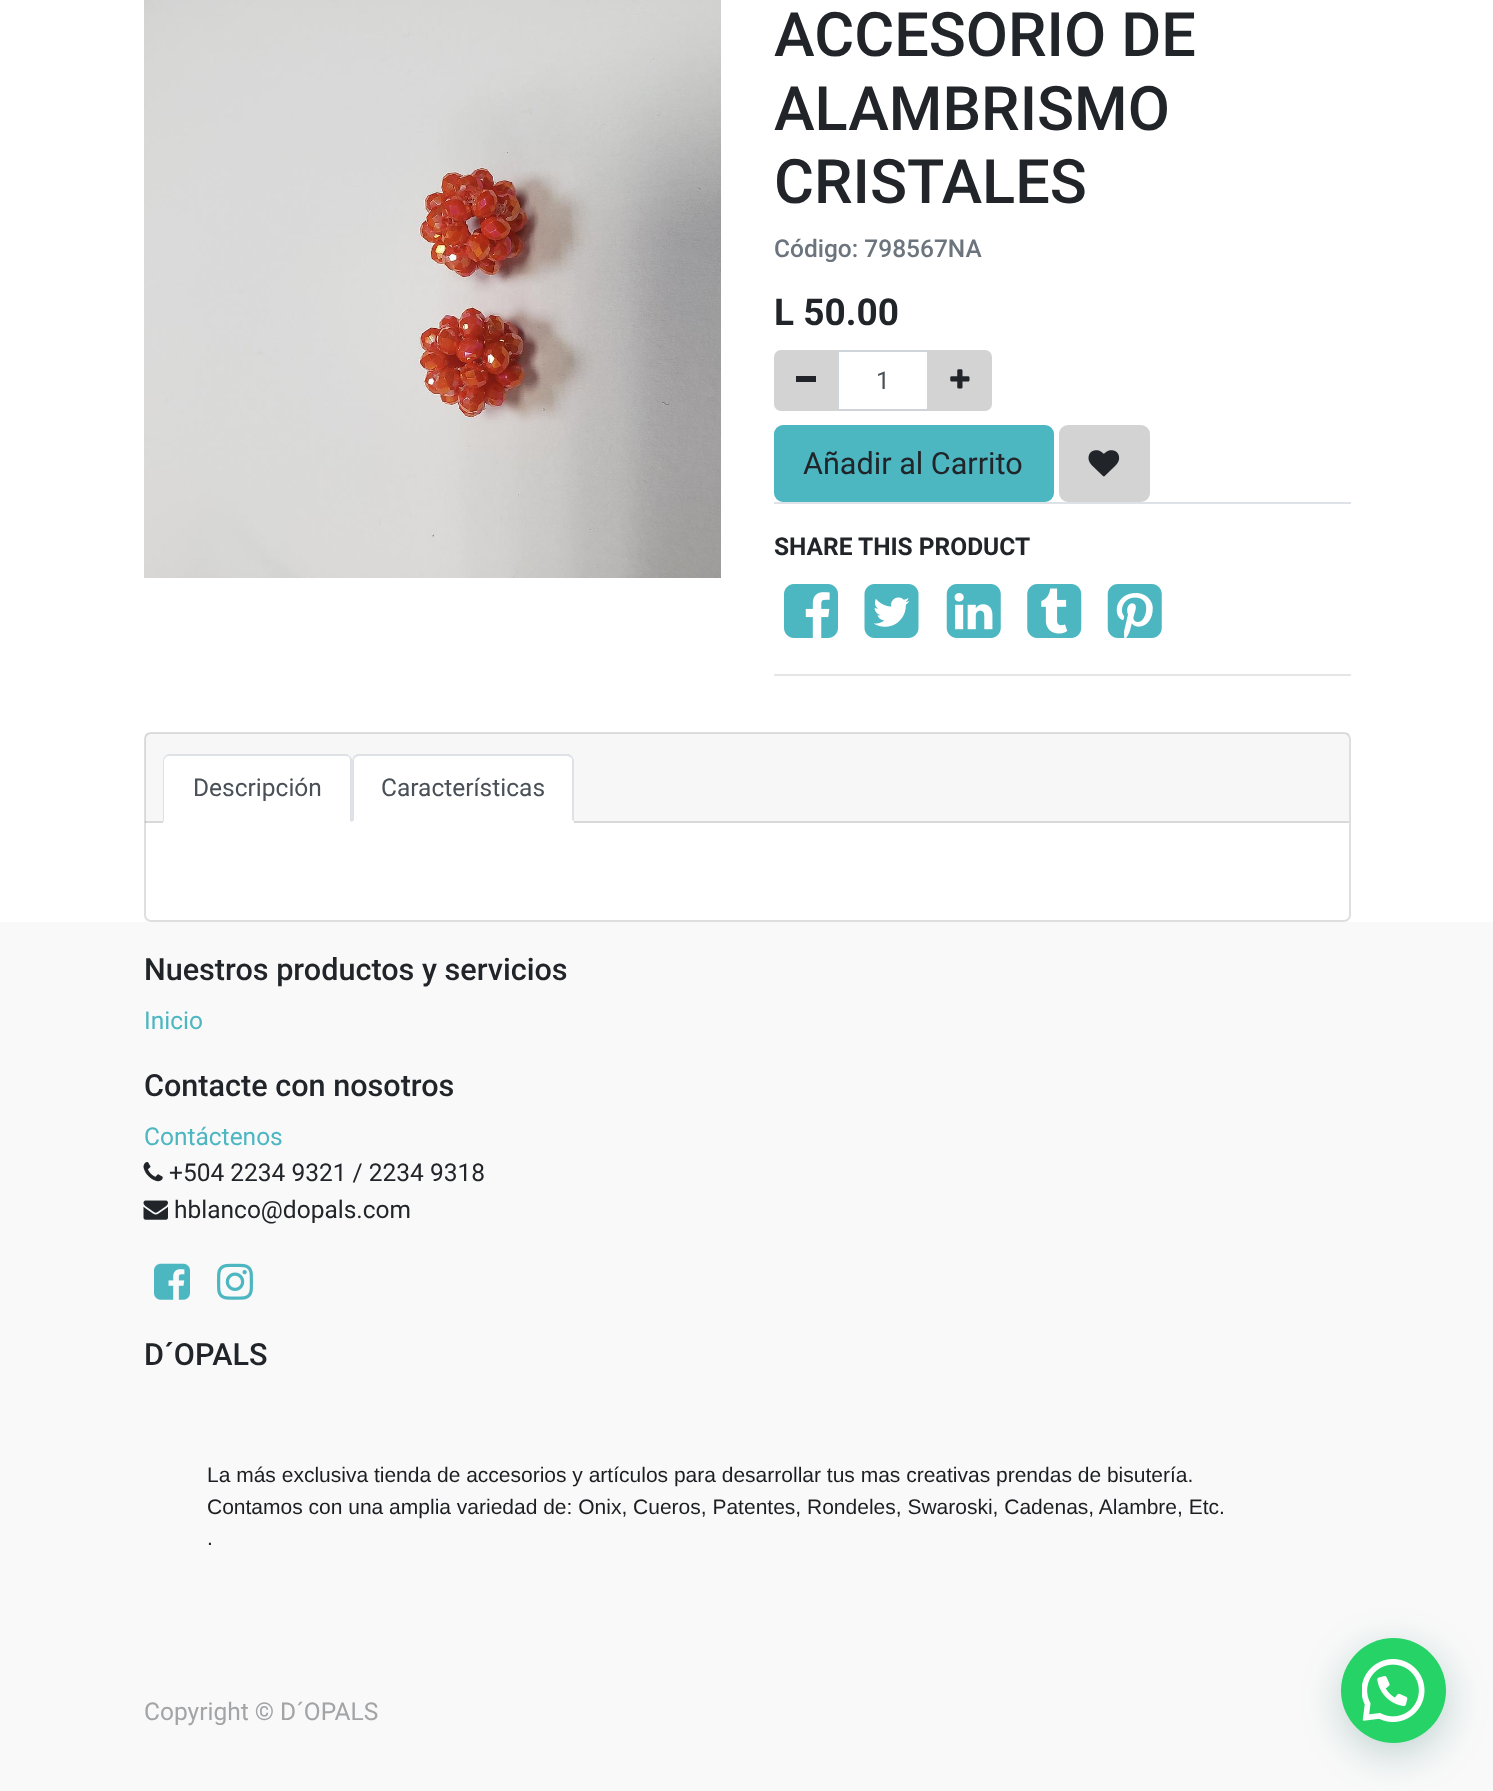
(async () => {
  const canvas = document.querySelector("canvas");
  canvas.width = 1493;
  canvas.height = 1791;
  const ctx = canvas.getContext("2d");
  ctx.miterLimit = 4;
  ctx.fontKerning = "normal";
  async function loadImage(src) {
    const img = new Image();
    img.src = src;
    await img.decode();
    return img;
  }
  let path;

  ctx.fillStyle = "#ffffff";
  ctx.fillRect(0, 0, 1493, 1791);
  ctx.drawImage(await loadImage("img/1.png"), 144, 0, 577, 578);
  ctx.strokeStyle = "#ced4da";
  ctx.lineWidth = 2;
  ctx.strokeRect(838, 351, 90, 59);
  ctx.fillStyle = "#d3d3d3";
  ctx.beginPath();
  ctx.roundRect(775, 351, 62, 59, [6, 0, 0, 6]);
  ctx.fill();
  ctx.strokeStyle = "#d3d3d3";
  ctx.stroke();
  ctx.fillStyle = "#212529";
  ctx.fillRect(796, 376, 20, 6);
  ctx.fillStyle = "#d3d3d3";
  ctx.beginPath();
  ctx.roundRect(929, 351, 62, 59, [0, 6, 6, 0]);
  ctx.fill();
  ctx.stroke();
  ctx.drawImage(await loadImage("img/2.png"), 950, 369, 20, 20);
  ctx.fillStyle = "#4cb6c1";
  ctx.beginPath();
  ctx.roundRect(775, 426, 278, 75, 8);
  ctx.fill();
  ctx.strokeStyle = "#4cb6c1";
  ctx.stroke();
  ctx.fillStyle = "#d3d3d3";
  ctx.beginPath();
  ctx.roundRect(1060, 426, 89, 75, 8);
  ctx.fill();
  ctx.strokeStyle = "#d3d3d3";
  ctx.stroke();
  ctx.drawImage(await loadImage("img/3.png"), 1088, 450, 32, 27);
  ctx.fillStyle = "#dee2e6";
  ctx.fillRect(774, 502, 577, 2);
  ctx.drawImage(await loadImage("img/4.png"), 784, 584, 54, 54);
  ctx.drawImage(await loadImage("img/5.png"), 864, 584, 55, 54);
  ctx.drawImage(await loadImage("img/6.png"), 946, 584, 55, 54);
  ctx.drawImage(await loadImage("img/7.png"), 1027, 584, 55, 54);
  ctx.drawImage(await loadImage("img/8.png"), 1107, 584, 55, 54);
  ctx.fillStyle = "#e6e6e6";
  ctx.fillRect(774, 674, 577, 2);
  ctx.beginPath();
  ctx.roundRect(145, 733, 1205, 188, 6);
  ctx.strokeStyle = "#dfdfdf";
  ctx.stroke();
  ctx.fillStyle = "rgba(0, 0, 0, 0.03)";
  ctx.fillRect(145, 733, 1204, 90);
  ctx.fillStyle = "rgba(0, 0, 0, 0.12)";
  ctx.fillRect(145, 821, 1204, 2);
  ctx.fillStyle = "#ffffff";
  ctx.beginPath();
  ctx.roundRect(163, 754, 189, 69, [7, 7, 0, 0]);
  ctx.fill();
  ctx.fillStyle = "#dee2e6";
  path = new Path2D("M170 756C168 756 167 756 166 757L165 756L168 754H347L350 756L349 757C348 756 346 756 345 756Z");
  ctx.fill(path);
  path = new Path2D("M352 822L350 821V761C350 760 350 758 349 757L350 756L352 759Z");
  ctx.fill(path);
  ctx.fillStyle = "#ffffff";
  path = new Path2D("M351 822H163L164 821H350Z");
  ctx.fill(path);
  ctx.fillStyle = "#dee2e6";
  path = new Path2D("M163 822V761C163 759 164 757 165 756L166 757L164 760V821Z");
  ctx.fill(path);
  ctx.fillStyle = "#ffffff";
  ctx.beginPath();
  ctx.roundRect(352, 754, 222, 69, [7, 7, 0, 0]);
  ctx.fill();
  ctx.fillStyle = "#dee2e6";
  path = new Path2D("M359 756C357 756 356 757 355 758L354 756L357 754H569L572 756L571 758C570 757 569 756 567 756Z");
  ctx.fill(path);
  path = new Path2D("M574 822V761C574 759 573 757 572 756L571 758C572 758 572 760 572 761V820Z");
  ctx.fill(path);
  ctx.fillStyle = "#ffffff";
  path = new Path2D("M574 822H352L354 820V821H572V820Z");
  ctx.fill(path);
  ctx.fillStyle = "#dee2e6";
  path = new Path2D("M352 822V761C352 759 353 757 354 756L355 758C354 758 354 760 354 761V820Z");
  ctx.fill(path);
  ctx.fillStyle = "#f9f9f9";
  ctx.fillRect(0, 922, 1493, 869);
  ctx.drawImage(await loadImage("img/9.png"), 143, 1162, 20, 20);
  ctx.drawImage(await loadImage("img/10.png"), 143, 1200, 25, 20);
  ctx.drawImage(await loadImage("img/11.png"), 154, 1263, 36, 37);
  ctx.drawImage(await loadImage("img/12.png"), 217, 1263, 36, 37);
  ctx.fillStyle = "rgba(7, 94, 84, 0.24)";
  ctx.filter = "blur(21px)";
  ctx.beginPath();
  ctx.roundRect(1342, 1649, 105, 105, 52.5);
  ctx.fill();
  ctx.filter = "none";
  ctx.fillStyle = "#25d366";
  ctx.beginPath();
  ctx.arc(1393.5, 1690.5, 52.5, 0, Math.PI * 2);
  ctx.fill();
  ctx.drawImage(await loadImage("img/13.png"), 1362, 1659, 63, 63);
  ctx.font = "500 61.25px Roboto";
  ctx.fillStyle = "#212529";
  for (const [text, x, y] of [
    ["ACCESORIO DE", 774, 56],
    ["ALAMBRISMO", 774, 130],
    ["CRISTALES", 774, 203],
  ]) {
    ctx.fillText(text, x, y);
  }
  ctx.font = "500 24.5px Roboto";
  ctx.fillStyle = "#6c757d";
  ctx.fillText("Código: 798567NA", 774, 257);
  ctx.font = "bold 37px Roboto";
  ctx.fillStyle = "#212529";
  ctx.fillText("L 50.00", 774, 325);
  ctx.font = "24.5px Roboto";
  ctx.fillStyle = "#495057";
  ctx.fillText("1", 876, 389);
  ctx.font = "30.6px Roboto";
  ctx.fillStyle = "#212529";
  ctx.fillText("Añadir al Carrito", 803, 474);
  ctx.font = "bold 24.5px Roboto";
  ctx.fillText("SHARE THIS PRODUCT", 774, 555);
  ctx.font = "24.5px Roboto";
  ctx.fillStyle = "#495057";
  ctx.fillText("Descripción", 193, 796);
  ctx.fillText("Características", 381, 796);
  ctx.font = "500 30.6px Roboto";
  ctx.fillStyle = "#212529";
  ctx.fillText("Nuestros productos y servicios", 144, 980);
  ctx.font = "24.5px Roboto";
  ctx.fillStyle = "#4cb6c1";
  ctx.fillText("Inicio", 144, 1029);
  ctx.font = "500 30.6px Roboto";
  ctx.fillStyle = "#212529";
  ctx.fillText("Contacte con nosotros", 144, 1096);
  ctx.font = "24.5px Roboto";
  ctx.fillStyle = "#4cb6c1";
  ctx.fillText("Contáctenos", 144, 1145);
  ctx.fillStyle = "#212529";
  ctx.fillText("+504 2234 9321 / 2234 9318", 169, 1181);
  ctx.fillText("hblanco@dopals.com", 174, 1218);
  ctx.font = "500 30.6px Roboto";
  ctx.fillText("D´OPALS", 144, 1365);
  ctx.font = "21px Liberation Sans";
  ctx.fillStyle = "#1c1e21";
  for (const [text, x, y] of [
    ["La más exclusiva tienda de accesorios y artículos para desarrollar tus mas creativas prendas de bisutería.", 207, 1482],
    ["Contamos con una amplia variedad de: Onix, Cueros, Patentes, Rondeles, Swaroski, Cadenas, Alambre, Etc.", 207, 1514],
    [".", 207, 1545],
  ]) {
    ctx.fillText(text, x, y);
  }
  ctx.font = "24.5px Roboto";
  ctx.fillStyle = "#a3a4a6";
  ctx.fillText("Copyright © D´OPALS", 144, 1720);
})();
